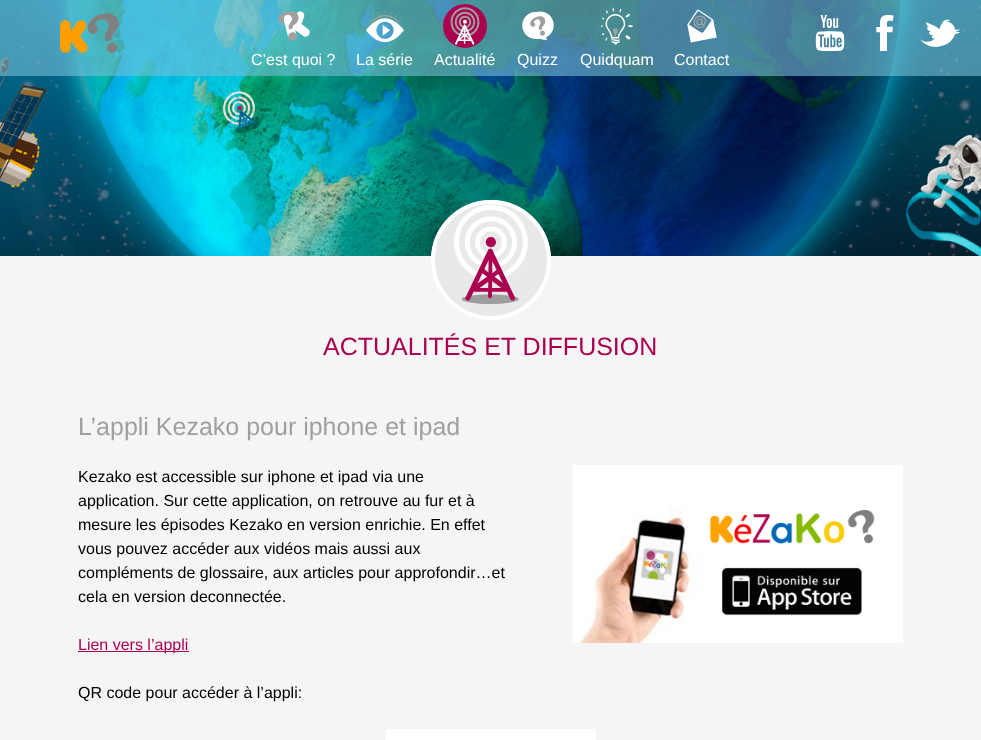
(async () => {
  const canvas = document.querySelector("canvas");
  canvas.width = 981;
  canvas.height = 740;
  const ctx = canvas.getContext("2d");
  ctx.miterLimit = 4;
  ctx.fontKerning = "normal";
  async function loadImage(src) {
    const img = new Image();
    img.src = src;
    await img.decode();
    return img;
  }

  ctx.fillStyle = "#f5f5f5";
  ctx.fillRect(0, 0, 981, 740);
  ctx.drawImage(await loadImage("img/1.png"), 0, 0, 981, 256);
  ctx.fillStyle = "rgba(118, 192, 216, 0.6)";
  ctx.fillRect(0, 0, 981, 76);
  ctx.drawImage(await loadImage("img/2.png"), 60, 13, 59, 41);
  ctx.drawImage(await loadImage("img/3.png"), 815, 15, 30, 36);
  ctx.drawImage(await loadImage("img/4.png"), 876, 15, 18, 36);
  ctx.drawImage(await loadImage("img/5.png"), 920, 19, 40, 28);
  ctx.drawImage(await loadImage("img/6.png"), 278, 11, 32, 30);
  ctx.drawImage(await loadImage("img/7.png"), 366, 10, 38, 33);
  ctx.fillStyle = "#ab0050";
  ctx.beginPath();
  ctx.arc(465, 26, 22, 0, Math.PI * 2);
  ctx.fill();
  ctx.drawImage(await loadImage("img/8.png"), 450, 7, 30, 38);
  ctx.drawImage(await loadImage("img/9.png"), 522, 11, 32, 30);
  ctx.drawImage(await loadImage("img/10.png"), 600, 7, 34, 38);
  ctx.drawImage(await loadImage("img/11.png"), 687, 9, 30, 34);
  ctx.fillStyle = "#e9e9e9";
  ctx.beginPath();
  ctx.arc(491, 260, 60, 0, Math.PI * 2);
  ctx.fill();
  ctx.drawImage(await loadImage("img/12.png"), 454, 204, 74, 116);
  ctx.beginPath();
  ctx.arc(491, 260, 58, 0, Math.PI * 2);
  ctx.strokeStyle = "#ffffff";
  ctx.lineWidth = 4;
  ctx.stroke();
  ctx.drawImage(await loadImage("img/13.png"), 573, 465, 330, 178);
  ctx.fillStyle = "#ab0050";
  ctx.fillRect(78, 651, 111, 1);
  ctx.fillStyle = "#ffffff";
  ctx.fillRect(386, 729, 210, 11);
  ctx.font = "16px Liberation Sans";
  for (const [text, x, y] of [
    ["C’est quoi ?", 251, 65],
    ["La série", 356, 65],
    ["Actualité", 434, 65],
    ["Quizz", 517, 65],
    ["Quidquam", 580, 65],
    ["Contact", 674, 65],
  ]) {
    ctx.fillText(text, x, y);
  }
  ctx.font = "25px Liberation Sans";
  ctx.fillStyle = "#ab0050";
  ctx.fillText("ACTUALITÉS ET DIFFUSION", 323, 355);
  ctx.fillStyle = "#9f9f9f";
  ctx.fillText("L’appli Kezako pour iphone et ipad", 78, 435);
  ctx.font = "16px Liberation Sans";
  ctx.fillStyle = "#000000";
  for (const [text, x, y] of [
    ["Kezako est accessible sur iphone et ipad via une", 78, 482],
    ["application. Sur cette application, on retrouve au fur et à", 78, 506],
    ["mesure les épisodes Kezako en version enrichie. En effet", 78, 530],
    ["vous pouvez accéder aux vidéos mais aussi aux", 78, 554],
    ["compléments de glossaire, aux articles pour approfondir…et", 78, 578],
    ["cela en version deconnectée.", 78, 602],
  ]) {
    ctx.fillText(text, x, y);
  }
  ctx.fillStyle = "#ab0050";
  ctx.fillText("Lien vers l’appli", 78, 650);
  ctx.fillStyle = "#000000";
  ctx.fillText("QR code pour accéder à l’appli:", 78, 698);
})();
